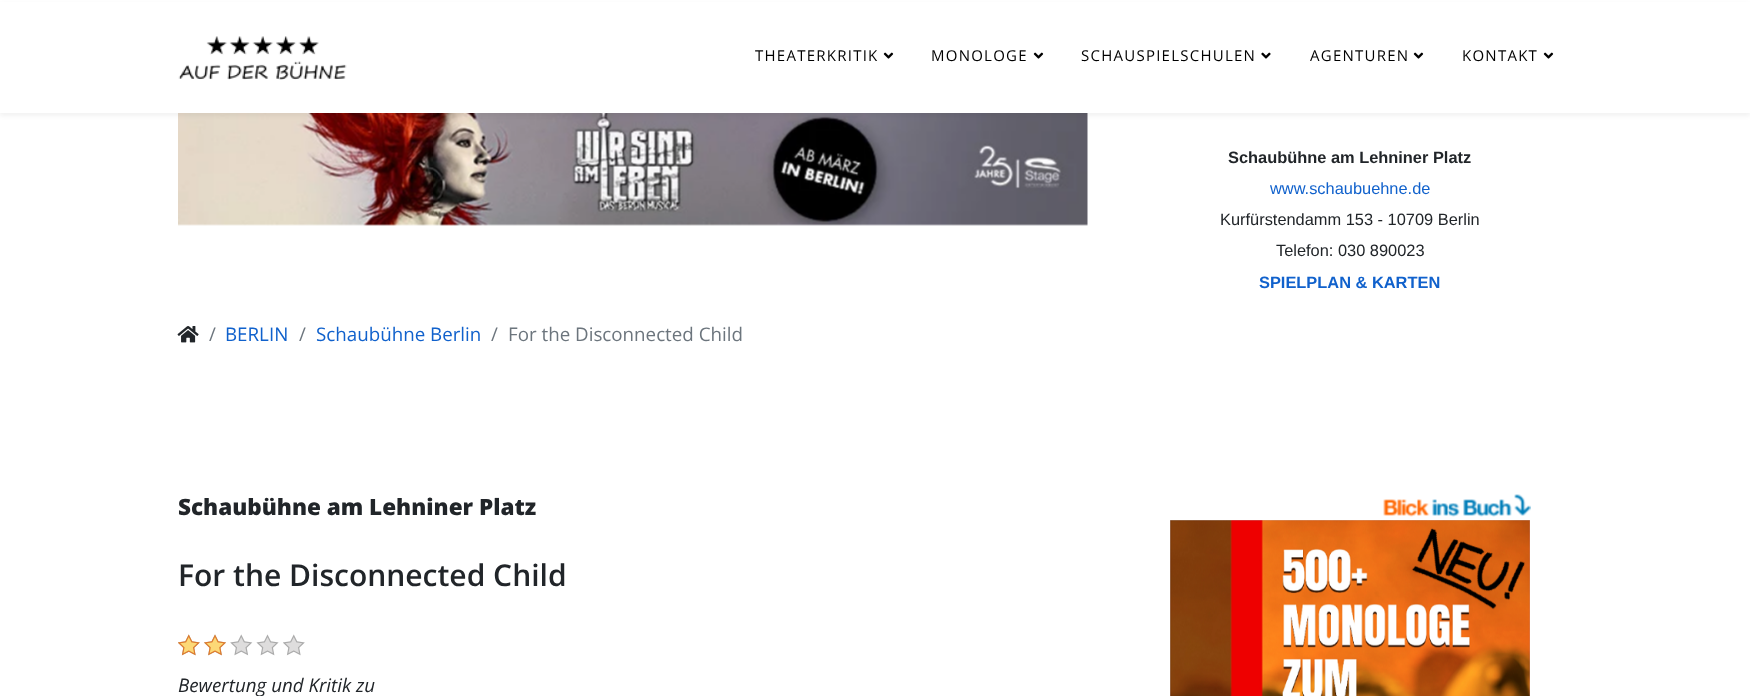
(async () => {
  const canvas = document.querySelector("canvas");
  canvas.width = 1750;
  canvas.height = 696;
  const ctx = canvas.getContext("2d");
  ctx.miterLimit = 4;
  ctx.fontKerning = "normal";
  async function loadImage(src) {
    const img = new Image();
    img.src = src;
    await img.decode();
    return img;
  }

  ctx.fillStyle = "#ffffff";
  ctx.fillRect(0, 0, 1750, 696);
  ctx.drawImage(await loadImage("img/4.png"), 178, 113, 910, 113);
  ctx.fillStyle = "rgba(0, 0, 0, 0.05)";
  ctx.filter = "blur(2px)";
  ctx.beginPath();
  ctx.rect(0, 4, 1750, 112);
  ctx.fill();
  ctx.filter = "none";
  ctx.fillStyle = "#ffffff";
  ctx.fillRect(0, 2, 1750, 111);
  ctx.drawImage(await loadImage("img/1.png"), 178, 36, 169, 44);
  ctx.drawImage(await loadImage("img/2.png"), 883, 52, 11, 7);
  ctx.drawImage(await loadImage("img/2.png"), 1033, 52, 11, 7);
  ctx.drawImage(await loadImage("img/3.png"), 1261, 52, 10, 7);
  ctx.drawImage(await loadImage("img/2.png"), 1413, 52, 11, 7);
  ctx.drawImage(await loadImage("img/2.png"), 1543, 52, 11, 7);
  ctx.drawImage(await loadImage("img/5.png"), 177, 326, 22, 17);
  ctx.drawImage(await loadImage("img/6.png"), 178, 634, 22, 22);
  ctx.drawImage(await loadImage("img/7.png"), 178, 634, 22, 22);
  ctx.drawImage(await loadImage("img/8.png"), 204, 634, 22, 22);
  ctx.drawImage(await loadImage("img/9.png"), 204, 634, 22, 22);
  ctx.drawImage(await loadImage("img/10.png"), 230, 634, 23, 22);
  ctx.drawImage(await loadImage("img/11.png"), 256, 634, 23, 22);
  ctx.drawImage(await loadImage("img/6.png"), 283, 634, 22, 22);
  ctx.drawImage(await loadImage("img/12.png"), 1383, 494, 148, 23);
  ctx.drawImage(await loadImage("img/13.png"), 1170, 520, 360, 176);
  ctx.letterSpacing = "1.25px";
  ctx.font = "15px Open Sans";
  ctx.fillStyle = "#000000";
  for (const [text, x, y] of [
    ["THEATERKRITIK", 755, 61],
    ["MONOLOGE", 931, 61],
    ["SCHAUSPIELSCHULEN", 1081, 61],
    ["AGENTUREN", 1310, 61],
    ["KONTAKT", 1462, 61],
  ]) {
    ctx.fillText(text, x, y);
  }
  ctx.letterSpacing = "0px";
  ctx.font = "bold 16.4px Liberation Sans";
  ctx.fillStyle = "#212529";
  ctx.fillText("Schaubühne am Lehniner Platz", 1228, 163);
  ctx.font = "16.4px Liberation Sans";
  ctx.fillStyle = "#1061cc";
  ctx.fillText("www.schaubuehne.de", 1270, 194);
  ctx.fillStyle = "#212529";
  ctx.fillText("Kurfürstendamm 153 - 10709 Berlin", 1220, 225);
  ctx.fillText("Telefon: 030 890023", 1276, 256);
  ctx.font = "bold 16.4px Liberation Sans";
  ctx.fillStyle = "#1061cc";
  ctx.fillText("SPIELPLAN & KARTEN", 1259, 288);
  ctx.font = "18.75px Open Sans";
  ctx.fillStyle = "#6c757d";
  ctx.fillText("/", 209, 341);
  ctx.fillStyle = "#1061cc";
  ctx.fillText("BERLIN", 225, 341);
  ctx.fillStyle = "#6c757d";
  ctx.fillText("/", 299, 341);
  ctx.fillStyle = "#1061cc";
  ctx.fillText("Schaubühne Berlin", 316, 341);
  ctx.fillStyle = "#6c757d";
  ctx.fillText("/", 491, 341);
  ctx.fillText("For the Disconnected Child", 508, 341);
  ctx.font = "800 22.5px Open Sans";
  ctx.fillStyle = "#212529";
  ctx.fillText("Schaubühne am Lehniner Platz", 178, 515);
  ctx.font = "600 30px Open Sans";
  ctx.fillText("For the Disconnected Child", 178, 586);
  ctx.font = "italic 18.75px Open Sans";
  ctx.fillText("Bewertung und Kritik zu", 178, 692);
})();
